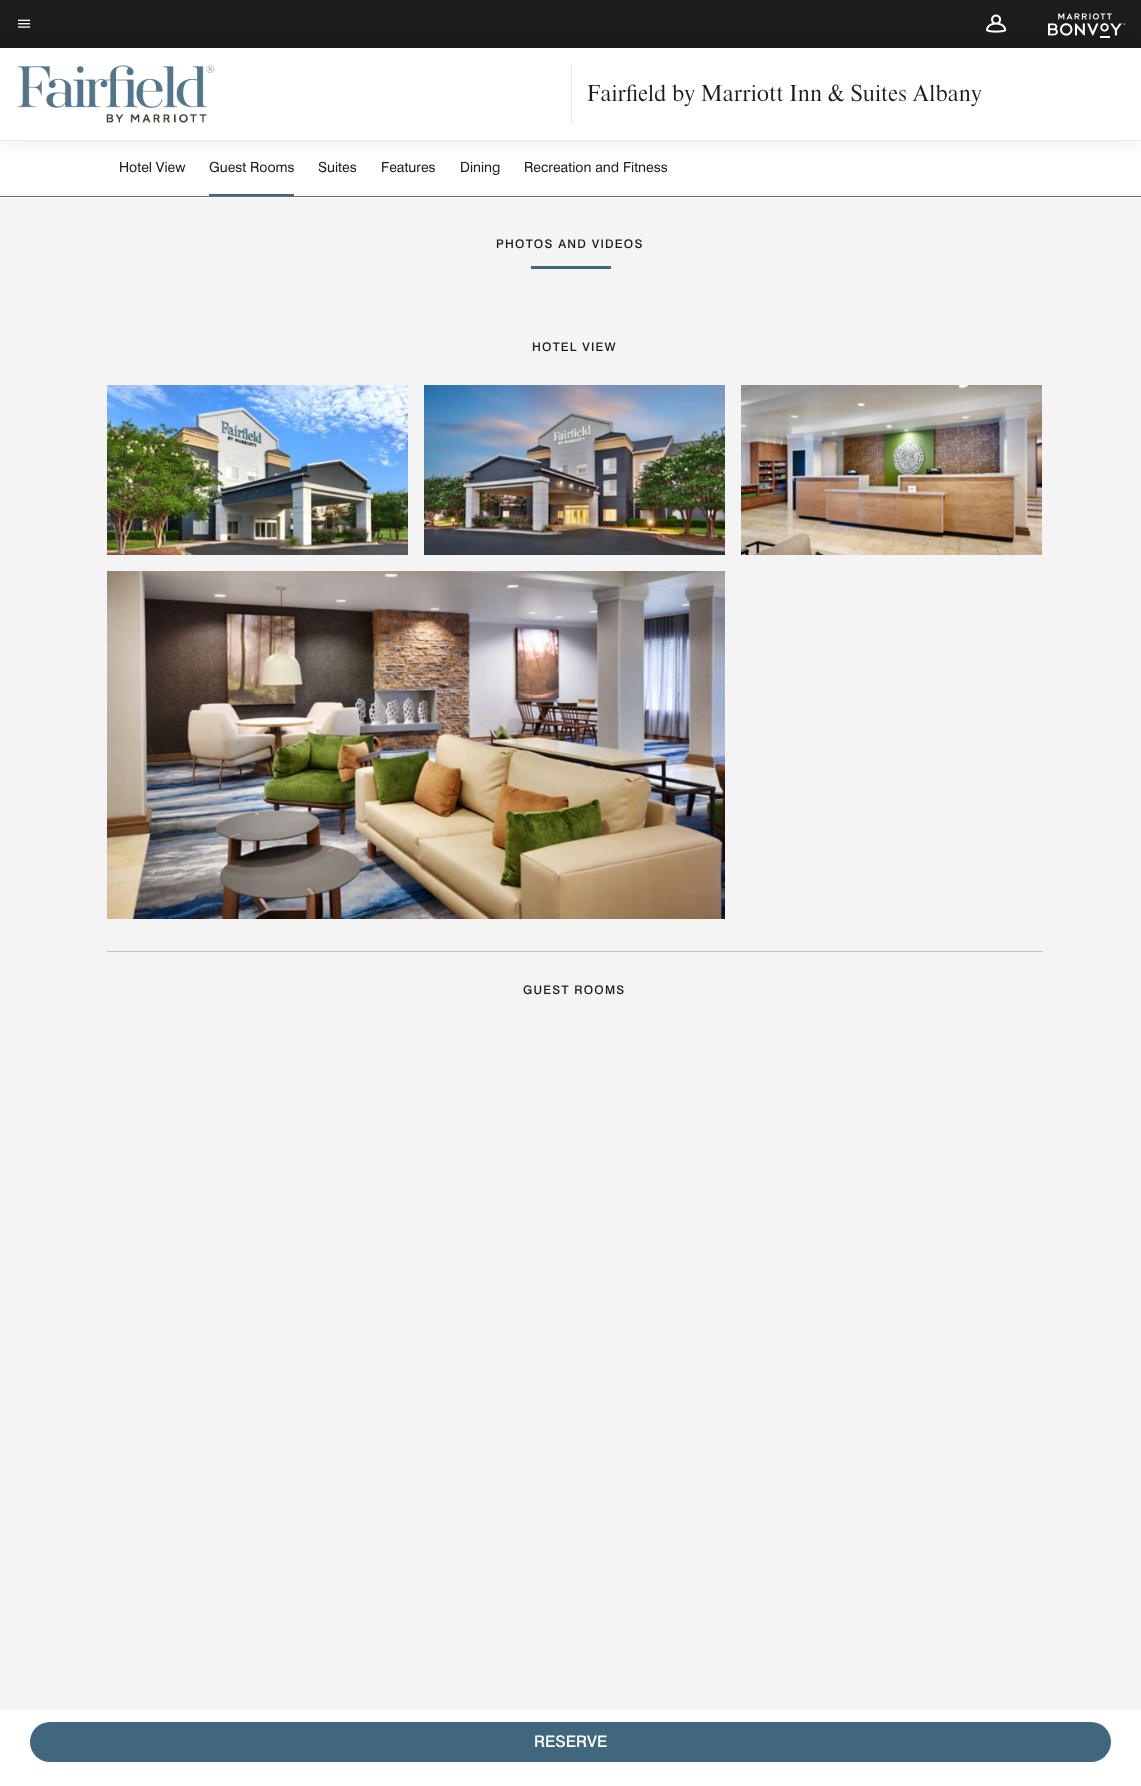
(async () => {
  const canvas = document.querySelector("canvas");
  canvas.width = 1141;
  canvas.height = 1786;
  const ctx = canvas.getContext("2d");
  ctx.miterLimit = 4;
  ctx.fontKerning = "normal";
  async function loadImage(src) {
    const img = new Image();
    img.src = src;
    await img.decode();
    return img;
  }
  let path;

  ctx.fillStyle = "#ffffff";
  ctx.fillRect(0, 0, 1141, 1786);
  for (const [x, y, w, h, color] of [
    [0, 198, 1141, 1512, "#f4f4f4"],
    [209, 194, 85, 2, "#41677f"],
    [0, 196, 1141, 1, "#707070"],
    [531, 266, 80, 3, "#41677f"],
  ]) {
    ctx.fillStyle = color;
    ctx.fillRect(x, y, w, h);
  }
  ctx.drawImage(await loadImage("img/1.png"), 107, 385, 301, 170);
  ctx.drawImage(await loadImage("img/2.png"), 424, 385, 301, 170);
  ctx.drawImage(await loadImage("img/3.png"), 741, 385, 301, 170);
  ctx.drawImage(await loadImage("img/4.png"), 107, 571, 618, 348);
  for (const [x, y, w, h, color] of [
    [107, 951, 936, 1, "#c4c4c4"],
    [0, 0, 1141, 48, "#1c1c1c"],
    [16, 11, 1, 1, "#000000"],
  ]) {
    ctx.fillStyle = color;
    ctx.fillRect(x, y, w, h);
  }
  ctx.drawImage(await loadImage("img/5.png"), 18, 19, 13, 9);
  ctx.drawImage(await loadImage("img/6.png"), 986, 14, 21, 19);
  ctx.fillStyle = "#f4f4f4";
  ctx.fillRect(0, 140, 1141, 1);
  ctx.save();
  path = new Path2D("M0 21H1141V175H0ZM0 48H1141V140H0Z");
  ctx.clip(path, "evenodd");
  ctx.fillStyle = "rgba(0, 0, 0, 0.07)";
  ctx.filter = "blur(10px)";
  ctx.beginPath();
  ctx.rect(0, 52, 1141, 92);
  ctx.fill();
  ctx.filter = "none";
  ctx.restore();
  ctx.drawImage(await loadImage("img/7.png"), 1048, 13, 78, 23);
  ctx.fillStyle = "#ffffff";
  ctx.fillRect(1100, 36, 10, 2);
  ctx.fillStyle = "#e6e7e9";
  ctx.fillRect(571, 64, 1, 60);
  ctx.drawImage(await loadImage("img/8.png"), 17, 65, 197, 58);
  ctx.fillStyle = "#41677f";
  ctx.beginPath();
  ctx.roundRect(30, 1722, 1081, 40, 20);
  ctx.fill();
  ctx.font = "14px 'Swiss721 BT'";
  ctx.fillStyle = "#1c1c1c";
  for (const [text, x, y] of [
    ["Hotel View", 119, 172],
    ["Guest Rooms", 209, 172],
    ["Suites", 318, 172],
    ["Features", 381, 172],
    ["Dining", 460, 172],
    ["Recreation and Fitness", 524, 172],
  ]) {
    ctx.fillText(text, x, y);
  }
  ctx.letterSpacing = "1.25px";
  ctx.font = "500 12px 'Swiss721 BT'";
  for (const [text, x, y] of [
    ["PHOTOS AND VIDEOS", 496, 248],
    ["HOTEL VIEW", 532, 351],
    ["GUEST ROOMS", 523, 994],
  ]) {
    ctx.fillText(text, x, y);
  }
  ctx.letterSpacing = "0px";
  ctx.font = "22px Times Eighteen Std";
  ctx.fillText("Fairfield by Marriott Inn & Suites Albany", 587, 101);
  ctx.font = "500 16px 'Swiss721 BT'";
  ctx.fillStyle = "#ffffff";
  ctx.fillText("RESERVE", 534, 1747);
})();
